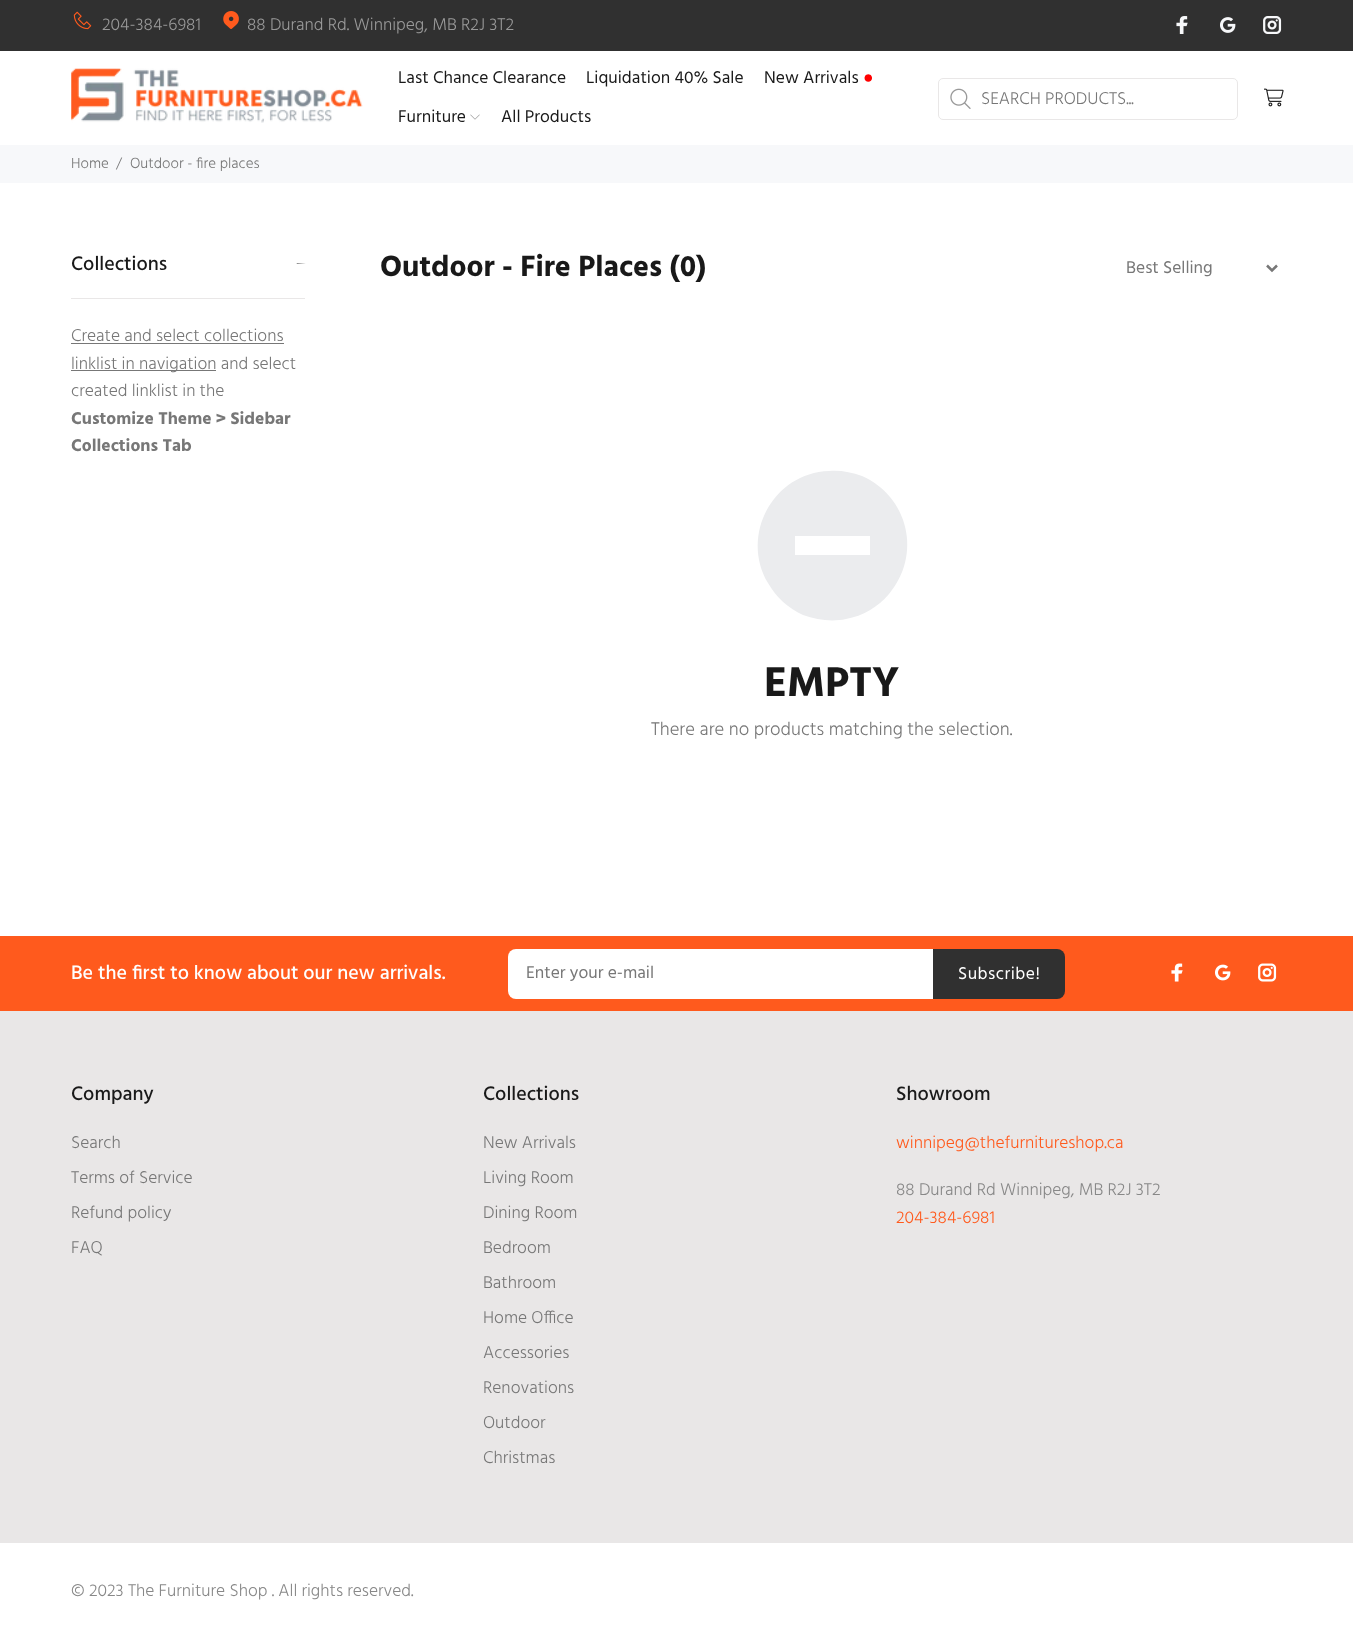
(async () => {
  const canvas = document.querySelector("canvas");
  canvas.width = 1353;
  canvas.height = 1633;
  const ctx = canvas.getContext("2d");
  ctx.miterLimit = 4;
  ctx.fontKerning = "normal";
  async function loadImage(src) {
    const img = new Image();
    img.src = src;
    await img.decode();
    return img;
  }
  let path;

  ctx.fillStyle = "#ffffff";
  ctx.fillRect(0, 0, 1353, 1633);
  ctx.fillStyle = "#303030";
  ctx.fillRect(0, 0, 1353, 51);
  ctx.drawImage(await loadImage("img/1.png"), 73, 11, 19, 19);
  ctx.drawImage(await loadImage("img/2.png"), 223, 11, 16, 18);
  ctx.drawImage(await loadImage("img/3.png"), 1176, 16, 12, 18);
  ctx.drawImage(await loadImage("img/4.png"), 1220, 17, 16, 16);
  ctx.drawImage(await loadImage("img/5.png"), 1263, 16, 19, 18);
  ctx.drawImage(await loadImage("img/6.png"), 71, 68, 292, 55);
  ctx.drawImage(await loadImage("img/7.png"), 470, 114, 10, 6);
  ctx.beginPath();
  ctx.roundRect(938.5, 78.5, 299, 41, 4.5);
  ctx.strokeStyle = "#e9e7e7";
  ctx.stroke();
  ctx.drawImage(await loadImage("img/8.png"), 950, 88, 21, 21);
  ctx.drawImage(await loadImage("img/9.png"), 1264, 88, 20, 19);
  ctx.fillStyle = "#f7f8fa";
  ctx.fillRect(0, 145, 1353, 38);
  ctx.fillStyle = "#e9e7e7";
  ctx.fillRect(71, 298, 234, 1);
  ctx.fillStyle = "#191919";
  path = new Path2D("M306 263.5H296.5L297 263Z");
  ctx.fill(path);
  ctx.fillStyle = "#777777";
  ctx.fillRect(71, 343, 213, 1);
  ctx.fillRect(71, 370, 145, 1);
  path = new Path2D("M1267 265.5L1272 270.5L1277 265.5");
  ctx.strokeStyle = "#777777";
  ctx.lineWidth = 2.5;
  ctx.stroke(path);
  ctx.fillStyle = "#ebecee";
  path = new Path2D("M862 476C909 497 922 555 889 594C878 607 863 616 846 619C832 622 817 620 803 615C788 608 776 597 768 583C740 535 773 473 829 471C840 470 851 472 862 476ZM870 536H795V555H870Z");
  ctx.fill(path);
  ctx.fillStyle = "#e9e7e7";
  ctx.fillRect(0, 1011, 1353, 532);
  ctx.fillStyle = "#ff5a1d";
  ctx.fillRect(0, 936, 1353, 75);
  ctx.fillStyle = "#ffffff";
  ctx.beginPath();
  ctx.roundRect(508, 949, 425, 50, [8, 0, 0, 8]);
  ctx.fill();
  ctx.fillStyle = "#303030";
  ctx.beginPath();
  ctx.roundRect(933, 949, 132, 50, [0, 8, 8, 0]);
  ctx.fill();
  ctx.drawImage(await loadImage("img/10.png"), 1171, 963, 12, 19);
  ctx.drawImage(await loadImage("img/11.png"), 1215, 964, 16, 17);
  ctx.drawImage(await loadImage("img/12.png"), 1258, 963, 19, 19);
  ctx.font = "300 17.5px Hind";
  ctx.fillStyle = "#999999";
  ctx.fillText("204-384-6981", 102, 30);
  ctx.fillText("88 Durand Rd. Winnipeg, MB R2J 3T2", 247, 30);
  ctx.font = "17.5px Hind";
  ctx.fillStyle = "#191919";
  for (const [text, x, y] of [
    ["Last Chance Clearance", 398, 83],
    ["Liquidation 40% Sale", 586, 83],
    ["New Arrivals", 764, 83],
  ]) {
    ctx.fillText(text, x, y);
  }
  ctx.font = "17.5px Liberation Sans";
  ctx.fillStyle = "#ff0000";
  ctx.fillText("●", 863, 83);
  ctx.font = "17.5px Hind";
  ctx.fillStyle = "#191919";
  ctx.fillText("Furniture", 398, 122);
  ctx.fillText("All Products", 501, 122);
  ctx.font = "300 17.5px Hind";
  ctx.fillStyle = "#777777";
  ctx.fillText("SEARCH PRODUCTS...", 981, 104);
  ctx.font = "300 15px Hind";
  for (const [text, x, y] of [
    ["Home", 71, 168],
    ["/", 116, 168],
    ["Outdoor - fire places", 130, 168],
  ]) {
    ctx.fillText(text, x, y);
  }
  ctx.font = "500 20px Hind";
  ctx.fillStyle = "#191919";
  ctx.fillText("Collections", 71, 270);
  ctx.font = "300 17.5px Hind";
  ctx.fillStyle = "#777777";
  for (const [text, x, y] of [
    ["Create and select collections", 71, 341],
    ["linklist in navigation and select", 71, 369],
    ["created linklist in the", 71, 396],
  ]) {
    ctx.fillText(text, x, y);
  }
  ctx.font = "bold 17.5px Hind";
  ctx.fillText("Customize Theme > Sidebar", 71, 424);
  ctx.fillText("Collections Tab", 71, 451);
  ctx.font = "bold 30px Hind";
  ctx.fillStyle = "#191919";
  ctx.fillText("Outdoor - Fire Places (0)", 380, 276);
  ctx.font = "17.5px Hind";
  ctx.fillStyle = "#777777";
  ctx.fillText("Best Selling", 1126, 273);
  ctx.font = "bold 42.5px Hind";
  ctx.fillStyle = "#191919";
  ctx.fillText("EMPTY", 764, 696);
  ctx.font = "300 18.75px Hind";
  ctx.fillStyle = "#777777";
  ctx.fillText("There are no products matching the selection.", 651, 735);
  ctx.font = "500 20px Hind";
  ctx.fillStyle = "#ffffff";
  ctx.fillText("Be the first to know about our new arrivals.", 71, 979);
  ctx.font = "17.5px Hind";
  ctx.fillStyle = "#777777";
  ctx.fillText("Enter your e-mail", 526, 978);
  ctx.letterSpacing = "0.5px";
  ctx.fillStyle = "#ffffff";
  ctx.fillText("Subscribe!", 958, 979);
  ctx.letterSpacing = "0px";
  ctx.font = "500 20px Hind";
  ctx.fillStyle = "#191919";
  ctx.fillText("Company", 71, 1100);
  ctx.font = "300 17.5px Hind";
  ctx.fillStyle = "#777777";
  for (const [text, x, y] of [
    ["Search", 71, 1148],
    ["Terms of Service", 71, 1183],
    ["Refund policy", 71, 1218],
    ["FAQ", 71, 1253],
  ]) {
    ctx.fillText(text, x, y);
  }
  ctx.font = "500 20px Hind";
  ctx.fillStyle = "#191919";
  ctx.fillText("Collections", 483, 1100);
  ctx.font = "300 17.5px Hind";
  ctx.fillStyle = "#777777";
  for (const [text, x, y] of [
    ["New Arrivals", 483, 1148],
    ["Living Room", 483, 1183],
    ["Dining Room", 483, 1218],
    ["Bedroom", 483, 1253],
    ["Bathroom", 483, 1288],
    ["Home Office", 483, 1323],
    ["Accessories", 483, 1358],
    ["Renovations", 483, 1393],
    ["Outdoor", 483, 1428],
    ["Christmas", 483, 1463],
  ]) {
    ctx.fillText(text, x, y);
  }
  ctx.font = "500 20px Hind";
  ctx.fillStyle = "#191919";
  ctx.fillText("Showroom", 896, 1100);
  ctx.font = "300 17.5px Hind";
  ctx.fillStyle = "#ff5a1d";
  ctx.fillText("winnipeg@thefurnitureshop.ca", 896, 1148);
  ctx.fillStyle = "#888888";
  ctx.fillText("88 Durand Rd Winnipeg, MB R2J 3T2", 896, 1195);
  ctx.fillStyle = "#ff5a1d";
  ctx.fillText("204-384-6981", 896, 1223);
  ctx.fillStyle = "#888888";
  ctx.fillText("© 2023 The Furniture Shop . All rights reserved.", 71, 1596);
})();
